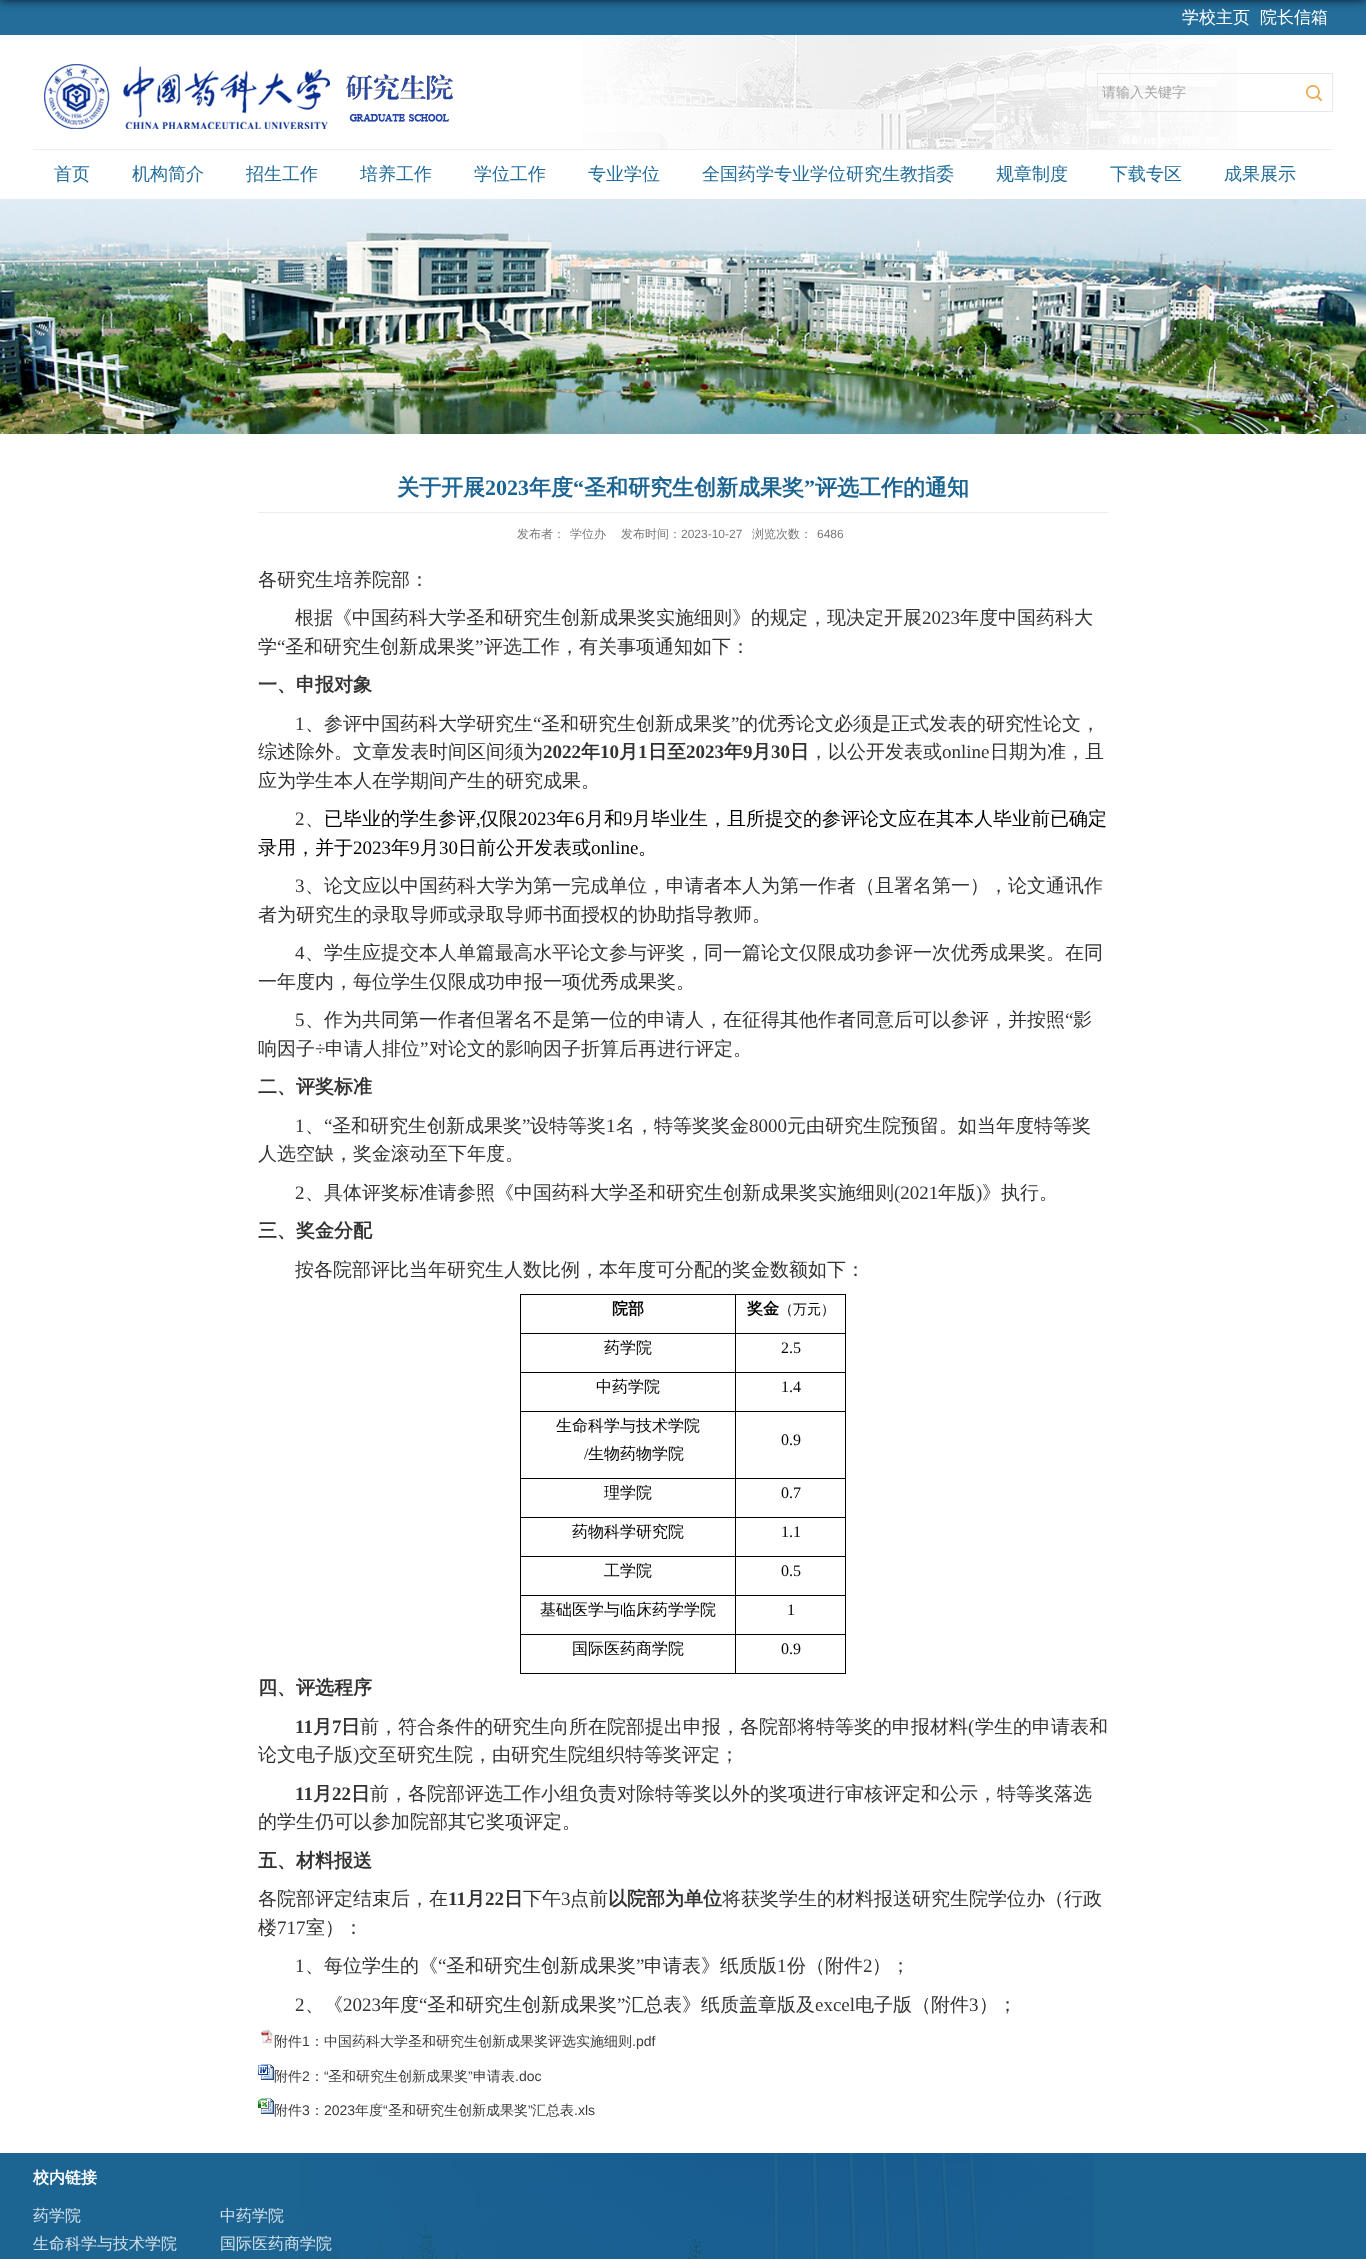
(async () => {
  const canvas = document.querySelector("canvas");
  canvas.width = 1366;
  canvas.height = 2259;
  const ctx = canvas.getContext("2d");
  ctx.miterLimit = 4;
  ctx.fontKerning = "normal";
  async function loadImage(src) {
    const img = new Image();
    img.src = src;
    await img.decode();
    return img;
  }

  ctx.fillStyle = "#ffffff";
  ctx.fillRect(0, 0, 1366, 2259);
  ctx.fillStyle = "#236d9b";
  ctx.fillRect(0, 0, 1366, 35);
  ctx.fillStyle = "rgba(0, 0, 0, 0.8)";
  ctx.filter = "blur(5px)";
  ctx.beginPath();
  ctx.rect(0, -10, 1366, 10);
  ctx.fill();
  ctx.filter = "none";
  ctx.drawImage(await loadImage("img/1.png"), 582, 35, 656, 114);
  ctx.drawImage(await loadImage("img/2.png"), 606, 75, 58, 31);
  ctx.drawImage(await loadImage("img/3.png"), 44, 64, 409, 65);
  ctx.strokeStyle = "#e8e8e8";
  ctx.strokeRect(1097.5, 73.5, 235, 38);
  ctx.drawImage(await loadImage("img/4.png"), 1306, 85, 16, 16);
  ctx.fillStyle = "#eeeeee";
  ctx.fillRect(33, 149, 1300, 1);
  ctx.drawImage(await loadImage("img/5.png"), 0, 199, 1366, 235);
  for (const [x, y, w, h, color] of [
    [258, 512, 850, 1, "#ececec"],
    [520, 1294, 326, 1, "#000000"],
    [845, 1333, 1, 341, "#000000"],
    [845, 1294, 1, 40, "#000000"],
    [735, 1673, 111, 1, "#000000"],
    [735, 1634, 1, 40, "#000000"],
    [735, 1634, 111, 1, "#000000"],
    [735, 1595, 1, 40, "#000000"],
    [735, 1595, 111, 1, "#000000"],
    [735, 1556, 1, 40, "#000000"],
    [735, 1556, 111, 1, "#000000"],
    [735, 1517, 1, 40, "#000000"],
    [735, 1517, 111, 1, "#000000"],
    [735, 1478, 1, 40, "#000000"],
    [735, 1478, 111, 1, "#000000"],
    [735, 1411, 1, 68, "#000000"],
    [735, 1411, 111, 1, "#000000"],
    [735, 1372, 1, 40, "#000000"],
    [735, 1372, 111, 1, "#000000"],
    [735, 1333, 1, 40, "#000000"],
    [735, 1333, 111, 1, "#000000"],
    [735, 1294, 1, 40, "#000000"],
    [520, 1673, 216, 1, "#000000"],
    [520, 1634, 1, 40, "#000000"],
    [520, 1634, 216, 1, "#000000"],
    [520, 1595, 1, 40, "#000000"],
    [520, 1595, 216, 1, "#000000"],
    [520, 1556, 1, 40, "#000000"],
    [520, 1556, 216, 1, "#000000"],
    [520, 1517, 1, 40, "#000000"],
    [520, 1517, 216, 1, "#000000"],
    [520, 1478, 1, 40, "#000000"],
    [520, 1478, 216, 1, "#000000"],
    [520, 1411, 1, 68, "#000000"],
    [520, 1411, 216, 1, "#000000"],
    [520, 1372, 1, 40, "#000000"],
    [520, 1372, 216, 1, "#000000"],
    [520, 1333, 1, 40, "#000000"],
    [520, 1333, 216, 1, "#000000"],
    [520, 1294, 1, 40, "#000000"],
  ]) {
    ctx.fillStyle = color;
    ctx.fillRect(x, y, w, h);
  }
  ctx.drawImage(await loadImage("img/6.png"), 261, 2029, 12, 15);
  ctx.drawImage(await loadImage("img/7.png"), 258, 2064, 16, 16);
  ctx.drawImage(await loadImage("img/8.png"), 258, 2098, 16, 16);
  ctx.fillStyle = "#1c6593";
  ctx.fillRect(0, 2153, 1366, 106);
  ctx.drawImage(await loadImage("img/9.png"), 299, 2153, 795, 106);
  ctx.font = "500 17px WenQuanYi Zen Hei";
  ctx.fillStyle = "#ffffff";
  ctx.fillText("学校主页", 1182, 23);
  ctx.fillText("院长信箱", 1260, 23);
  ctx.font = "500 14px WenQuanYi Zen Hei";
  ctx.fillStyle = "#a5a5a5";
  ctx.fillText("请输入关键字", 1102, 97);
  ctx.font = "500 18px WenQuanYi Zen Hei";
  ctx.fillStyle = "#236d9b";
  for (const [text, x, y] of [
    ["首页", 54, 180],
    ["机构简介", 132, 180],
    ["招生工作", 246, 180],
    ["培养工作", 360, 180],
    ["学位工作", 474, 180],
    ["专业学位", 588, 180],
    ["全国药学专业学位研究生教指委", 702, 180],
    ["规章制度", 996, 180],
    ["下载专区", 1110, 180],
    ["成果展示", 1224, 180],
  ]) {
    ctx.fillText(text, x, y);
  }
  ctx.font = "bold 22px WenQuanYi Zen Hei";
  ctx.fillStyle = "#1c6593";
  ctx.fillText("关于开展", 397, 495);
  ctx.font = "bold 22px Liberation Serif";
  ctx.fillText("2023", 485, 495);
  ctx.font = "bold 22px WenQuanYi Zen Hei";
  ctx.fillText("年度", 529, 495);
  ctx.font = "bold 22px Liberation Serif";
  ctx.fillText("“", 573, 495);
  ctx.font = "bold 22px WenQuanYi Zen Hei";
  ctx.fillText("圣和研究生创新成果奖", 584, 495);
  ctx.font = "bold 22px Liberation Serif";
  ctx.fillText("”", 804, 495);
  ctx.font = "bold 22px WenQuanYi Zen Hei";
  ctx.fillText("评选工作的通知", 815, 495);
  ctx.font = "500 12px WenQuanYi Zen Hei";
  ctx.fillStyle = "#787878";
  for (const [text, x, y] of [
    ["发布者：", 517, 538],
    ["学位办", 570, 538],
    ["发布时间：", 621, 538],
  ]) {
    ctx.fillText(text, x, y);
  }
  ctx.font = "12px Liberation Sans";
  ctx.fillText("2023-10-27", 681, 538);
  ctx.font = "500 12px WenQuanYi Zen Hei";
  ctx.fillText("浏览次数：", 752, 538);
  ctx.font = "12px Liberation Sans";
  ctx.fillText("6486", 817, 538);
  ctx.font = "500 19px WenQuanYi Zen Hei";
  ctx.fillStyle = "#333333";
  ctx.fillText("各研究生培养院部：", 258, 586);
  ctx.fillText("根据《中国药科大学圣和研究生创新成果奖实施细则》的规定，现决定开展", 295, 624);
  ctx.font = "19px Liberation Serif";
  ctx.fillText("2023", 922, 624);
  ctx.font = "500 19px WenQuanYi Zen Hei";
  ctx.fillText("年度中国药科大", 960, 624);
  ctx.fillText("学", 258, 653);
  ctx.font = "19px Liberation Serif";
  ctx.fillText("“", 277, 653);
  ctx.font = "500 19px WenQuanYi Zen Hei";
  ctx.fillText("圣和研究生创新成果奖", 285, 653);
  ctx.font = "19px Liberation Serif";
  ctx.fillText("”", 475, 653);
  ctx.font = "500 19px WenQuanYi Zen Hei";
  ctx.fillText("评选工作，有关事项通知如下：", 484, 653);
  ctx.font = "bold 19px WenQuanYi Zen Hei";
  ctx.fillText("一、申报对象", 258, 691);
  ctx.font = "19px Liberation Serif";
  ctx.fillText("1", 295, 730);
  ctx.font = "500 19px WenQuanYi Zen Hei";
  ctx.fillText("、参评中国药科大学研究生", 305, 730);
  ctx.font = "19px Liberation Serif";
  ctx.fillText("“", 533, 730);
  ctx.font = "500 19px WenQuanYi Zen Hei";
  ctx.fillText("圣和研究生创新成果奖", 541, 730);
  ctx.font = "19px Liberation Serif";
  ctx.fillText("”", 731, 730);
  ctx.font = "500 19px WenQuanYi Zen Hei";
  ctx.fillText("的优秀论文必须是正式发表的研究性论文，", 739, 730);
  ctx.fillText("综述除外。文章发表时间区间须为", 258, 758);
  ctx.font = "bold 19px Liberation Serif";
  ctx.fillText("2022", 543, 758);
  ctx.font = "bold 19px WenQuanYi Zen Hei";
  ctx.fillText("年", 581, 758);
  ctx.font = "bold 19px Liberation Serif";
  ctx.fillText("10", 600, 758);
  ctx.font = "bold 19px WenQuanYi Zen Hei";
  ctx.fillText("月", 619, 758);
  ctx.font = "bold 19px Liberation Serif";
  ctx.fillText("1", 638, 758);
  ctx.font = "bold 19px WenQuanYi Zen Hei";
  ctx.fillText("日至", 648, 758);
  ctx.font = "bold 19px Liberation Serif";
  ctx.fillText("2023", 686, 758);
  ctx.font = "bold 19px WenQuanYi Zen Hei";
  ctx.fillText("年", 724, 758);
  ctx.font = "bold 19px Liberation Serif";
  ctx.fillText("9", 743, 758);
  ctx.font = "bold 19px WenQuanYi Zen Hei";
  ctx.fillText("月", 752, 758);
  ctx.font = "bold 19px Liberation Serif";
  ctx.fillText("30", 771, 758);
  ctx.font = "bold 19px WenQuanYi Zen Hei";
  ctx.fillText("日", 790, 758);
  ctx.font = "500 19px WenQuanYi Zen Hei";
  ctx.fillText("，以公开发表或", 809, 758);
  ctx.font = "19px Liberation Serif";
  ctx.fillText("online", 942, 758);
  ctx.font = "500 19px WenQuanYi Zen Hei";
  ctx.fillText("日期为准，且", 990, 758);
  ctx.fillText("应为学生本人在学期间产生的研究成果。", 258, 787);
  ctx.font = "19px Liberation Serif";
  ctx.fillText("2", 295, 825);
  ctx.font = "500 19px WenQuanYi Zen Hei";
  ctx.fillText("、", 305, 825);
  ctx.fillStyle = "#000000";
  ctx.fillText("已毕业的学生参评", 324, 825);
  ctx.font = "19px Liberation Serif";
  ctx.fillText(",", 476, 825);
  ctx.font = "500 19px WenQuanYi Zen Hei";
  ctx.fillText("仅限", 480, 825);
  ctx.font = "19px Liberation Serif";
  ctx.fillText("2023", 518, 825);
  ctx.font = "500 19px WenQuanYi Zen Hei";
  ctx.fillText("年", 556, 825);
  ctx.font = "19px Liberation Serif";
  ctx.fillText("6", 575, 825);
  ctx.font = "500 19px WenQuanYi Zen Hei";
  ctx.fillText("月和", 585, 825);
  ctx.font = "19px Liberation Serif";
  ctx.fillText("9", 623, 825);
  ctx.font = "500 19px WenQuanYi Zen Hei";
  ctx.fillText("月毕业生，且所提交的参评论文应在其本人毕业前已确定", 632, 825);
  ctx.fillText("录用，并于", 258, 854);
  ctx.font = "19px Liberation Serif";
  ctx.fillText("2023", 353, 854);
  ctx.font = "500 19px WenQuanYi Zen Hei";
  ctx.fillText("年", 391, 854);
  ctx.font = "19px Liberation Serif";
  ctx.fillText("9", 410, 854);
  ctx.font = "500 19px WenQuanYi Zen Hei";
  ctx.fillText("月", 420, 854);
  ctx.font = "19px Liberation Serif";
  ctx.fillText("30", 439, 854);
  ctx.font = "500 19px WenQuanYi Zen Hei";
  ctx.fillText("日前公开发表或", 458, 854);
  ctx.font = "19px Liberation Serif";
  ctx.fillText("online", 591, 854);
  ctx.font = "500 19px WenQuanYi Zen Hei";
  ctx.fillText("。", 638, 854);
  ctx.font = "19px Liberation Serif";
  ctx.fillStyle = "#333333";
  ctx.fillText("3", 295, 892);
  ctx.font = "500 19px WenQuanYi Zen Hei";
  ctx.fillText("、论文应以中国药科大学为第一完成单位，申请者本人为第一作者（且署名第一），论文通讯作", 305, 892);
  ctx.fillText("者为研究生的录取导师或录取导师书面授权的协助指导教师。", 258, 921);
  ctx.font = "19px Liberation Serif";
  ctx.fillText("4", 295, 959);
  ctx.font = "500 19px WenQuanYi Zen Hei";
  ctx.fillText("、学生应提交本人单篇最高水平论文参与评奖，同一篇论文仅限成功参评一次优秀成果奖。在同", 305, 959);
  ctx.fillText("一年度内，每位学生仅限成功申报一项优秀成果奖。", 258, 988);
  ctx.font = "19px Liberation Serif";
  ctx.fillText("5", 295, 1026);
  ctx.font = "500 19px WenQuanYi Zen Hei";
  ctx.fillText("、作为共同第一作者但署名不是第一位的申请人，在征得其他作者同意后可以参评，并按照", 305, 1026);
  ctx.font = "19px Liberation Serif";
  ctx.fillText("“", 1065, 1026);
  ctx.font = "500 19px WenQuanYi Zen Hei";
  ctx.fillText("影", 1073, 1026);
  ctx.fillText("响因子", 258, 1055);
  ctx.font = "19px Liberation Serif";
  ctx.fillText("÷", 315, 1055);
  ctx.font = "500 19px WenQuanYi Zen Hei";
  ctx.fillText("申请人排位", 325, 1055);
  ctx.font = "19px Liberation Serif";
  ctx.fillText("”", 420, 1055);
  ctx.font = "500 19px WenQuanYi Zen Hei";
  ctx.fillText("对论文的影响因子折算后再进行评定。", 429, 1055);
  ctx.font = "bold 19px WenQuanYi Zen Hei";
  ctx.fillText("二、评奖标准", 258, 1093);
  ctx.font = "19px Liberation Serif";
  ctx.fillText("1", 295, 1132);
  ctx.font = "500 19px WenQuanYi Zen Hei";
  ctx.fillText("、", 305, 1132);
  ctx.font = "19px Liberation Serif";
  ctx.fillText("“", 324, 1132);
  ctx.font = "500 19px WenQuanYi Zen Hei";
  ctx.fillText("圣和研究生创新成果奖", 332, 1132);
  ctx.font = "19px Liberation Serif";
  ctx.fillText("”", 522, 1132);
  ctx.font = "500 19px WenQuanYi Zen Hei";
  ctx.fillText("设特等奖", 530, 1132);
  ctx.font = "19px Liberation Serif";
  ctx.fillText("1", 606, 1132);
  ctx.font = "500 19px WenQuanYi Zen Hei";
  ctx.fillText("名，特等奖奖金", 616, 1132);
  ctx.font = "19px Liberation Serif";
  ctx.fillText("8000", 749, 1132);
  ctx.font = "500 19px WenQuanYi Zen Hei";
  ctx.fillText("元由研究生院预留。如当年度特等奖", 787, 1132);
  ctx.fillText("人选空缺，奖金滚动至下年度。", 258, 1160);
  ctx.font = "19px Liberation Serif";
  ctx.fillText("2", 295, 1199);
  ctx.font = "500 19px WenQuanYi Zen Hei";
  ctx.fillText("、具体评奖标准请参照《中国药科大学圣和研究生创新成果奖实施细则", 305, 1199);
  ctx.font = "19px Liberation Serif";
  ctx.fillText("(2021", 894, 1199);
  ctx.font = "500 19px WenQuanYi Zen Hei";
  ctx.fillText("年版", 938, 1199);
  ctx.font = "19px Liberation Serif";
  ctx.fillText(")", 976, 1199);
  ctx.font = "500 19px WenQuanYi Zen Hei";
  ctx.fillText("》执行。", 982, 1199);
  ctx.font = "bold 19px WenQuanYi Zen Hei";
  ctx.fillText("三、奖金分配", 258, 1237);
  ctx.font = "500 19px WenQuanYi Zen Hei";
  ctx.fillText("按各院部评比当年研究生人数比例，本年度可分配的奖金数额如下：", 295, 1276);
  ctx.font = "bold 16px WenQuanYi Zen Hei";
  ctx.fillStyle = "#000000";
  ctx.fillText("院部", 612, 1314);
  ctx.fillText("奖金", 747, 1314);
  ctx.font = "500 14px WenQuanYi Zen Hei";
  ctx.fillText("（万元）", 779, 1314);
  ctx.font = "500 16px WenQuanYi Zen Hei";
  ctx.fillText("药学院", 604, 1353);
  ctx.font = "16px Liberation Serif";
  ctx.fillText("2.5", 781, 1353);
  ctx.font = "500 16px WenQuanYi Zen Hei";
  ctx.fillText("中药学院", 596, 1392);
  ctx.font = "16px Liberation Serif";
  ctx.fillText("1.4", 781, 1392);
  ctx.font = "500 16px WenQuanYi Zen Hei";
  ctx.fillText("生命科学与技术学院", 556, 1431);
  ctx.font = "16px Liberation Serif";
  ctx.fillText("/", 584, 1459);
  ctx.font = "500 16px WenQuanYi Zen Hei";
  ctx.fillText("生物药物学院", 588, 1459);
  ctx.font = "16px Liberation Serif";
  ctx.fillText("0.9", 781, 1445);
  ctx.font = "500 16px WenQuanYi Zen Hei";
  ctx.fillText("理学院", 604, 1498);
  ctx.font = "16px Liberation Serif";
  ctx.fillText("0.7", 781, 1498);
  ctx.font = "500 16px WenQuanYi Zen Hei";
  ctx.fillText("药物科学研究院", 572, 1537);
  ctx.font = "16px Liberation Serif";
  ctx.fillText("1.1", 781, 1537);
  ctx.font = "500 16px WenQuanYi Zen Hei";
  ctx.fillText("工学院", 604, 1576);
  ctx.font = "16px Liberation Serif";
  ctx.fillText("0.5", 781, 1576);
  ctx.font = "500 16px WenQuanYi Zen Hei";
  ctx.fillText("基础医学与临床药学学院", 540, 1615);
  ctx.font = "16px Liberation Serif";
  ctx.fillText("1", 787, 1615);
  ctx.font = "500 16px WenQuanYi Zen Hei";
  ctx.fillText("国际医药商学院", 572, 1654);
  ctx.font = "16px Liberation Serif";
  ctx.fillText("0.9", 781, 1654);
  ctx.font = "bold 19px WenQuanYi Zen Hei";
  ctx.fillStyle = "#333333";
  ctx.fillText("四、评选程序", 258, 1694);
  ctx.font = "bold 19px Liberation Serif";
  ctx.fillText("11", 295, 1733);
  ctx.font = "bold 19px WenQuanYi Zen Hei";
  ctx.fillText("月", 313, 1733);
  ctx.font = "bold 19px Liberation Serif";
  ctx.fillText("7", 332, 1733);
  ctx.font = "bold 19px WenQuanYi Zen Hei";
  ctx.fillText("日", 341, 1733);
  ctx.font = "500 19px WenQuanYi Zen Hei";
  ctx.fillText("前，符合条件的研究生向所在院部提出申报，各院部将特等奖的申报材料", 360, 1733);
  ctx.font = "19px Liberation Serif";
  ctx.fillText("(", 968, 1733);
  ctx.font = "500 19px WenQuanYi Zen Hei";
  ctx.fillText("学生的申请表和", 975, 1733);
  ctx.fillText("论文电子版", 258, 1761);
  ctx.font = "19px Liberation Serif";
  ctx.fillText(")", 353, 1761);
  ctx.font = "500 19px WenQuanYi Zen Hei";
  ctx.fillText("交至研究生院，由研究生院组织特等奖评定；", 359, 1761);
  ctx.font = "bold 19px Liberation Serif";
  ctx.fillText("11", 295, 1800);
  ctx.font = "bold 19px WenQuanYi Zen Hei";
  ctx.fillText("月", 313, 1800);
  ctx.font = "bold 19px Liberation Serif";
  ctx.fillText("22", 332, 1800);
  ctx.font = "bold 19px WenQuanYi Zen Hei";
  ctx.fillText("日", 351, 1800);
  ctx.font = "500 19px WenQuanYi Zen Hei";
  ctx.fillText("前，各院部评选工作小组负责对除特等奖以外的奖项进行审核评定和公示，特等奖落选", 370, 1800);
  ctx.fillText("的学生仍可以参加院部其它奖项评定。", 258, 1828);
  ctx.font = "bold 19px WenQuanYi Zen Hei";
  ctx.fillText("五、材料报送", 258, 1867);
  ctx.font = "500 19px WenQuanYi Zen Hei";
  ctx.fillText("各院部评定结束后，在", 258, 1905);
  ctx.font = "bold 19px Liberation Serif";
  ctx.fillText("11", 448, 1905);
  ctx.font = "bold 19px WenQuanYi Zen Hei";
  ctx.fillText("月", 466, 1905);
  ctx.font = "bold 19px Liberation Serif";
  ctx.fillText("22", 485, 1905);
  ctx.font = "bold 19px WenQuanYi Zen Hei";
  ctx.fillText("日", 504, 1905);
  ctx.font = "500 19px WenQuanYi Zen Hei";
  ctx.fillText("下午", 523, 1905);
  ctx.font = "19px Liberation Serif";
  ctx.fillText("3", 561, 1905);
  ctx.font = "500 19px WenQuanYi Zen Hei";
  ctx.fillText("点前", 570, 1905);
  ctx.font = "bold 19px WenQuanYi Zen Hei";
  ctx.fillText("以院部为单位", 608, 1905);
  ctx.font = "500 19px WenQuanYi Zen Hei";
  ctx.fillText("将获奖学生的材料报送研究生院学位办（行政", 722, 1905);
  ctx.fillText("楼", 258, 1934);
  ctx.font = "19px Liberation Serif";
  ctx.fillText("717", 277, 1934);
  ctx.font = "500 19px WenQuanYi Zen Hei";
  ctx.fillText("室）：", 306, 1934);
  ctx.font = "19px Liberation Serif";
  ctx.fillText("1", 295, 1972);
  ctx.font = "500 19px WenQuanYi Zen Hei";
  ctx.fillText("、每位学生的《", 305, 1972);
  ctx.font = "19px Liberation Serif";
  ctx.fillText("“", 438, 1972);
  ctx.font = "500 19px WenQuanYi Zen Hei";
  ctx.fillText("圣和研究生创新成果奖", 446, 1972);
  ctx.font = "19px Liberation Serif";
  ctx.fillText("”", 636, 1972);
  ctx.font = "500 19px WenQuanYi Zen Hei";
  ctx.fillText("申请表》纸质版", 644, 1972);
  ctx.font = "19px Liberation Serif";
  ctx.fillText("1", 777, 1972);
  ctx.font = "500 19px WenQuanYi Zen Hei";
  ctx.fillText("份（附件", 787, 1972);
  ctx.font = "19px Liberation Serif";
  ctx.fillText("2", 863, 1972);
  ctx.font = "500 19px WenQuanYi Zen Hei";
  ctx.fillText("）；", 872, 1972);
  ctx.font = "19px Liberation Serif";
  ctx.fillText("2", 295, 2011);
  ctx.font = "500 19px WenQuanYi Zen Hei";
  ctx.fillText("、《", 305, 2011);
  ctx.font = "19px Liberation Serif";
  ctx.fillText("2023", 343, 2011);
  ctx.font = "500 19px WenQuanYi Zen Hei";
  ctx.fillText("年度", 381, 2011);
  ctx.font = "19px Liberation Serif";
  ctx.fillText("“", 419, 2011);
  ctx.font = "500 19px WenQuanYi Zen Hei";
  ctx.fillText("圣和研究生创新成果奖", 427, 2011);
  ctx.font = "19px Liberation Serif";
  ctx.fillText("”", 617, 2011);
  ctx.font = "500 19px WenQuanYi Zen Hei";
  ctx.fillText("汇总表》纸质盖章版及", 625, 2011);
  ctx.font = "19px Liberation Serif";
  ctx.fillText("excel", 815, 2011);
  ctx.font = "500 19px WenQuanYi Zen Hei";
  ctx.fillText("电子版（附件", 855, 2011);
  ctx.font = "19px Liberation Serif";
  ctx.fillText("3", 969, 2011);
  ctx.font = "500 19px WenQuanYi Zen Hei";
  ctx.fillText("）；", 979, 2011);
  ctx.font = "500 14px WenQuanYi Zen Hei";
  ctx.fillStyle = "#3b3b3b";
  ctx.fillText("附件", 274, 2046);
  ctx.font = "14px Liberation Sans";
  ctx.fillText("1", 302, 2046);
  ctx.font = "500 14px WenQuanYi Zen Hei";
  ctx.fillText("：中国药科大学圣和研究生创新成果奖评选实施细则", 310, 2046);
  ctx.font = "14px Liberation Sans";
  ctx.fillText(".pdf", 632, 2046);
  ctx.font = "500 14px WenQuanYi Zen Hei";
  ctx.fillText("附件", 274, 2081);
  ctx.font = "14px Liberation Sans";
  ctx.fillText("2", 302, 2081);
  ctx.font = "500 14px WenQuanYi Zen Hei";
  ctx.fillText("：", 310, 2081);
  ctx.font = "14px Liberation Sans";
  ctx.fillText("“", 324, 2081);
  ctx.font = "500 14px WenQuanYi Zen Hei";
  ctx.fillText("圣和研究生创新成果奖", 328, 2081);
  ctx.font = "14px Liberation Sans";
  ctx.fillText("”", 468, 2081);
  ctx.font = "500 14px WenQuanYi Zen Hei";
  ctx.fillText("申请表", 473, 2081);
  ctx.font = "14px Liberation Sans";
  ctx.fillText(".doc", 515, 2081);
  ctx.font = "500 14px WenQuanYi Zen Hei";
  ctx.fillText("附件", 274, 2115);
  ctx.font = "14px Liberation Sans";
  ctx.fillText("3", 302, 2115);
  ctx.font = "500 14px WenQuanYi Zen Hei";
  ctx.fillText("：", 310, 2115);
  ctx.font = "14px Liberation Sans";
  ctx.fillText("2023", 324, 2115);
  ctx.font = "500 14px WenQuanYi Zen Hei";
  ctx.fillText("年度", 355, 2115);
  ctx.font = "14px Liberation Sans";
  ctx.fillText("“", 383, 2115);
  ctx.font = "500 14px WenQuanYi Zen Hei";
  ctx.fillText("圣和研究生创新成果奖", 388, 2115);
  ctx.font = "14px Liberation Sans";
  ctx.fillText("”", 528, 2115);
  ctx.font = "500 14px WenQuanYi Zen Hei";
  ctx.fillText("汇总表", 532, 2115);
  ctx.font = "14px Liberation Sans";
  ctx.fillText(".xls", 574, 2115);
  ctx.font = "bold 16px WenQuanYi Zen Hei";
  ctx.fillStyle = "#ffffff";
  ctx.fillText("校内链接", 33, 2183);
  ctx.font = "500 16px WenQuanYi Zen Hei";
  ctx.fillStyle = "#d2e0e9";
  for (const [text, x, y] of [
    ["药学院", 33, 2221],
    ["中药学院", 220, 2221],
    ["生命科学与技术学院", 33, 2249],
    ["国际医药商学院", 220, 2249],
  ]) {
    ctx.fillText(text, x, y);
  }
})();
